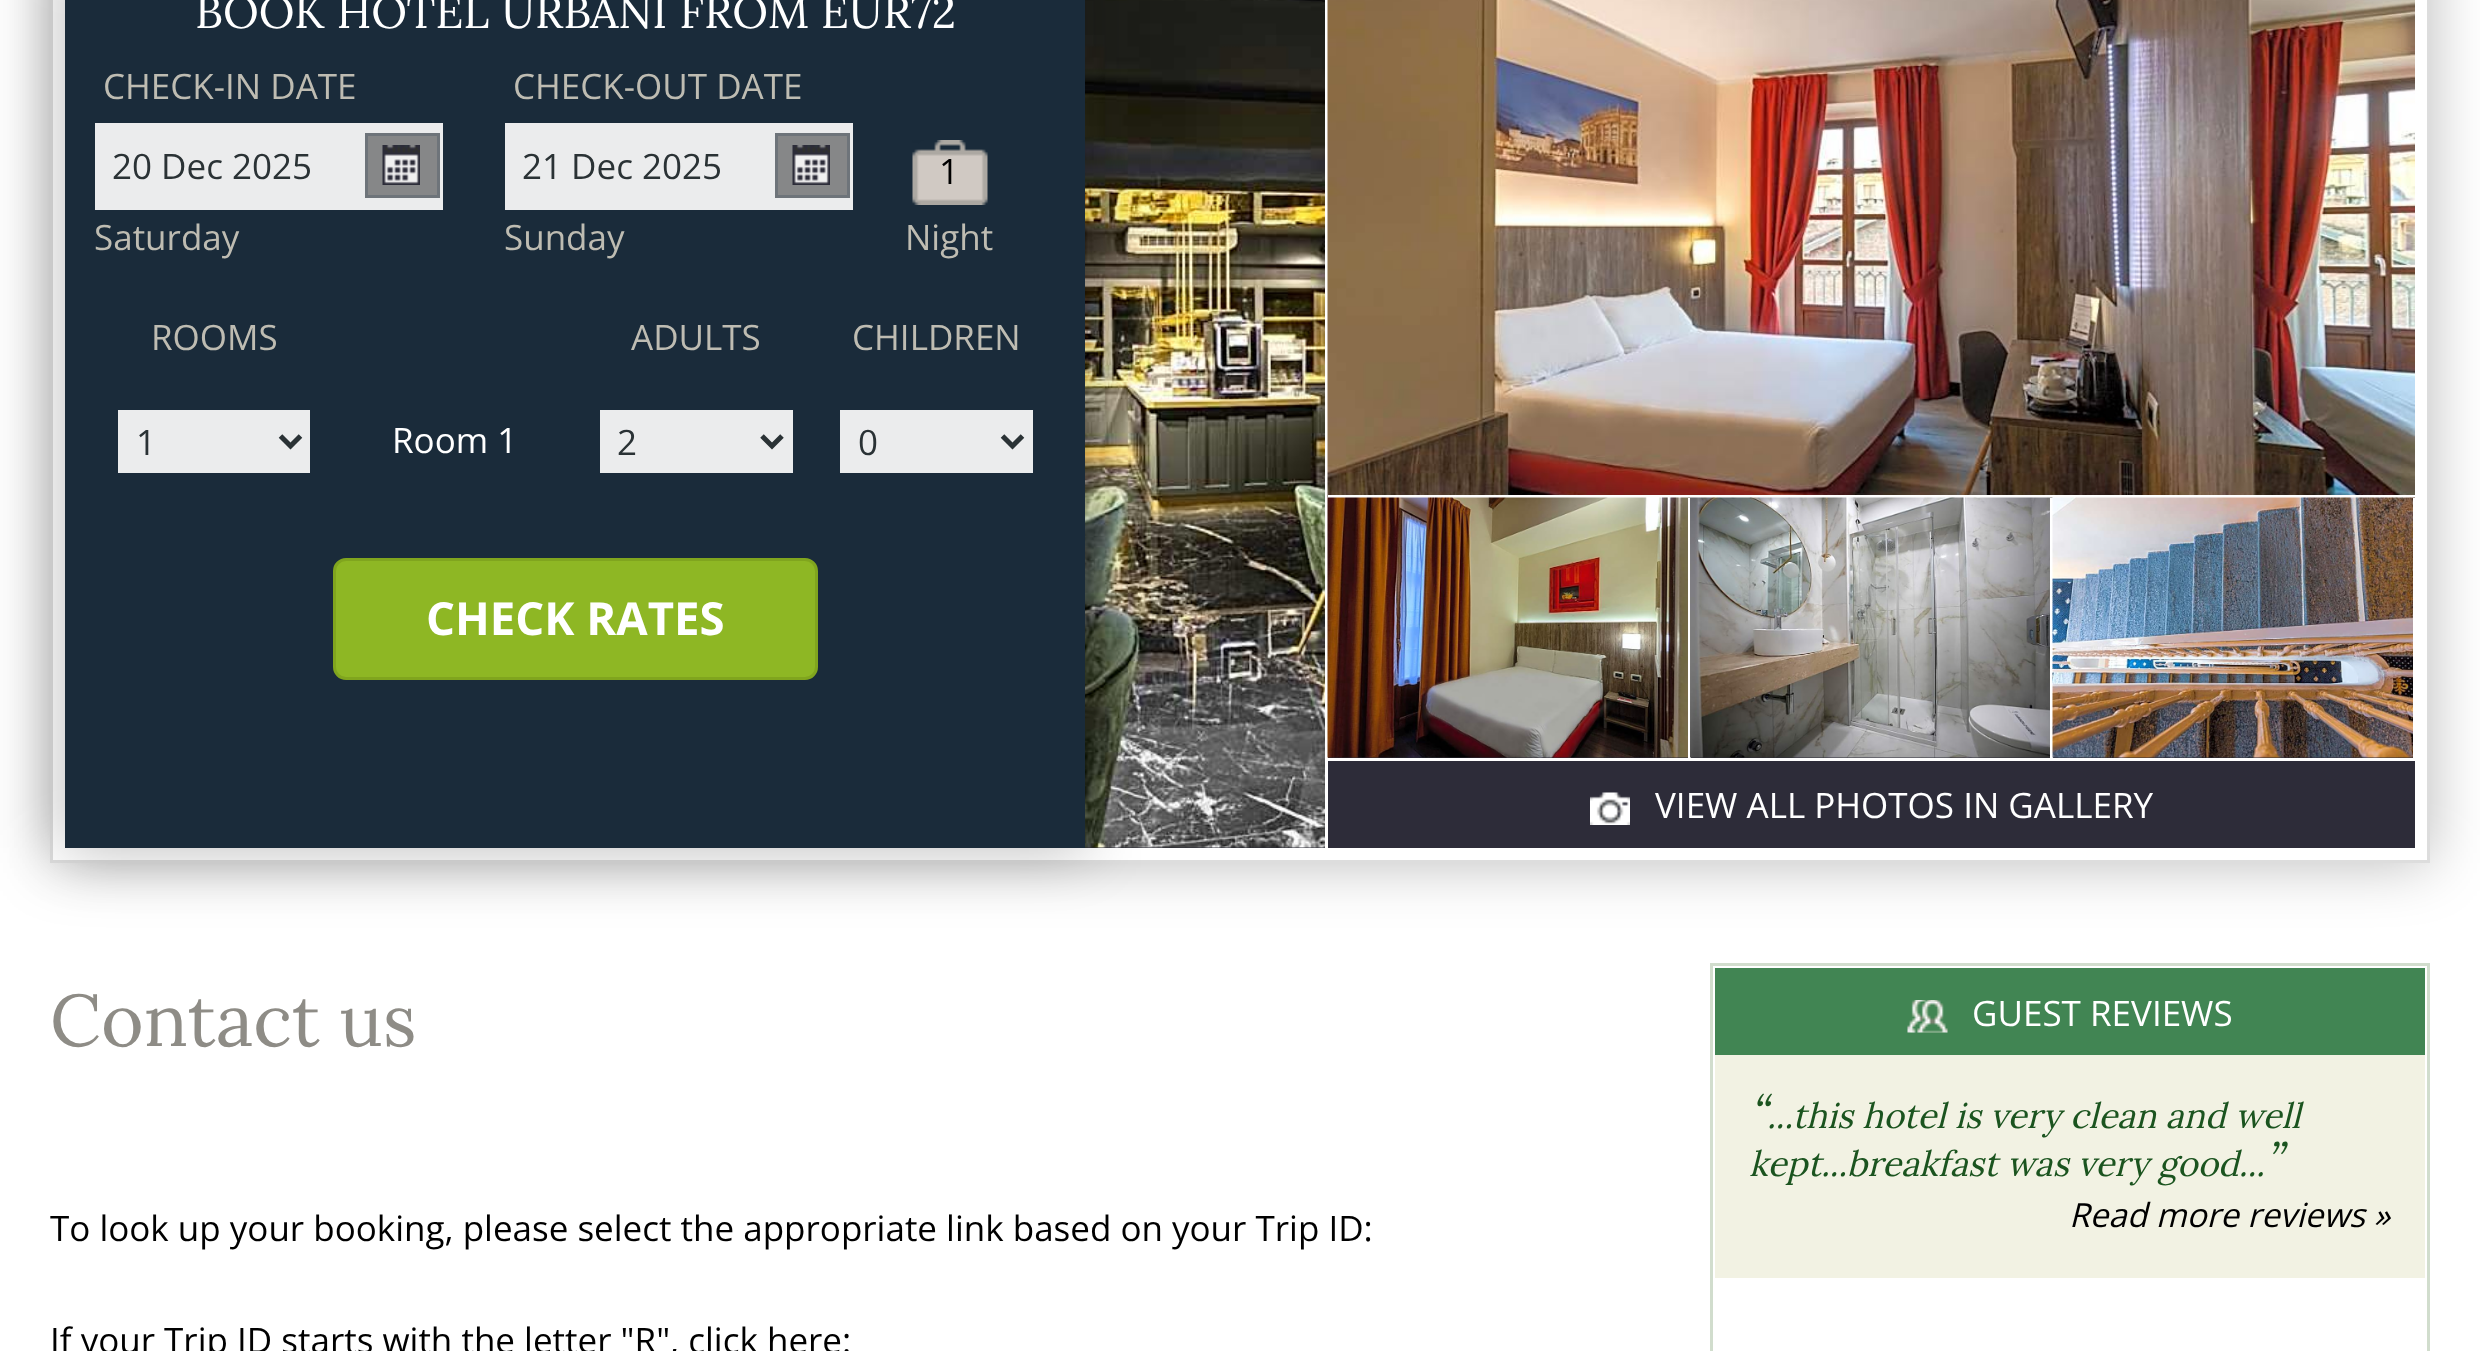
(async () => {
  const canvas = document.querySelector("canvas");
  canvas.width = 2480;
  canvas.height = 1351;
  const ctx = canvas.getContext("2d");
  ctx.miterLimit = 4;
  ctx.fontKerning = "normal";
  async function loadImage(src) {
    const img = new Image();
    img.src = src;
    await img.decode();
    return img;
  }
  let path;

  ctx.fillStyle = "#ffffff";
  ctx.fillRect(0, 0, 2480, 1351);
  ctx.save();
  path = new Path2D("M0 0H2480V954H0ZM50-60H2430V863H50Z");
  ctx.clip(path, "evenodd");
  ctx.fillStyle = "rgba(0, 0, 0, 0.27)";
  ctx.filter = "blur(30px)";
  ctx.beginPath();
  ctx.rect(50, -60, 2380, 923);
  ctx.fill();
  ctx.filter = "none";
  ctx.restore();
  ctx.strokeStyle = "#dddddd";
  ctx.lineWidth = 3;
  ctx.strokeRect(51.5, -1.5, 2377, 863);
  ctx.fillStyle = "#2d2c39";
  ctx.fillRect(1085, 757, 1330, 91);
  ctx.drawImage(await loadImage("img/4.png"), 1085, 0, 240, 848);
  ctx.save();
  path = new Path2D("M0 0H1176V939H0ZM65-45H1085V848H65Z");
  ctx.clip(path, "evenodd");
  ctx.fillStyle = "rgba(0, 0, 0, 0.27)";
  ctx.filter = "blur(30px)";
  ctx.beginPath();
  ctx.rect(65, -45, 1020, 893);
  ctx.fill();
  ctx.filter = "none";
  ctx.restore();
  for (const [x, y, w, h, color] of [
    [65, 0, 1020, 848, "rgba(1, 20, 37, 0.9)"],
    [95, 123, 348, 87, "#ebeced"],
    [368, 136, 69, 59, "#868788"],
  ]) {
    ctx.fillStyle = color;
    ctx.fillRect(x, y, w, h);
  }
  ctx.drawImage(await loadImage("img/1.png"), 382, 145, 38, 40);
  ctx.strokeStyle = "#6e747a";
  ctx.strokeRect(366.5, 134.5, 72, 62);
  ctx.fillStyle = "#ebeced";
  ctx.fillRect(505, 123, 348, 87);
  ctx.fillStyle = "#868788";
  ctx.fillRect(778, 136, 69, 59);
  ctx.drawImage(await loadImage("img/2.png"), 792, 145, 38, 40);
  ctx.strokeRect(776.5, 134.5, 72, 62);
  ctx.drawImage(await loadImage("img/3.png"), 912, 140, 76, 65);
  ctx.fillStyle = "#ebeced";
  ctx.fillRect(118, 410, 192, 63);
  path = new Path2D("M280.5 436L290.5 446L300.5 436");
  ctx.strokeStyle = "#2a3235";
  ctx.lineWidth = 5;
  ctx.stroke(path);
  ctx.fillRect(600, 410, 193, 63);
  path = new Path2D("M762 436L772 446L782 436");
  ctx.stroke(path);
  ctx.fillRect(840, 410, 193, 63);
  path = new Path2D("M1002.5 436L1012.5 446L1022.5 436");
  ctx.stroke(path);
  ctx.fillStyle = "#8eb724";
  ctx.beginPath();
  ctx.roundRect(334.5, 559.5, 482, 119, 11.5);
  ctx.fill();
  ctx.strokeStyle = "#80a51e";
  ctx.lineWidth = 3;
  ctx.stroke();
  ctx.fillStyle = "#ffffff";
  ctx.fillRect(1325, 757, 3, 91);
  ctx.drawImage(await loadImage("img/5.png"), 1327, 0, 1088, 498);
  ctx.fillRect(1328, 495, 1087, 3);
  ctx.drawImage(await loadImage("img/6.png"), 1327, 497, 363, 261);
  ctx.fillRect(1688, 498, 3, 260);
  ctx.drawImage(await loadImage("img/7.png"), 1690, 497, 363, 261);
  ctx.fillRect(2050, 498, 3, 260);
  ctx.drawImage(await loadImage("img/8.png"), 2052, 497, 363, 261);
  ctx.fillRect(2413, 498, 2, 260);
  ctx.fillRect(1328, 758, 1087, 3);
  ctx.drawImage(await loadImage("img/9.png"), 1590, 792, 40, 33);
  ctx.strokeStyle = "#d1ddcd";
  ctx.strokeRect(1711.5, 964.5, 717, 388);
  ctx.fillStyle = "#418553";
  ctx.fillRect(1715, 968, 710, 87);
  ctx.drawImage(await loadImage("img/10.png"), 1907, 1000, 41, 33);
  ctx.fillStyle = "#f2f2e3";
  ctx.fillRect(1715, 1055, 710, 223);
  ctx.font = "45px Lora";
  ctx.fillStyle = "#ffffff";
  ctx.fillText("BOOK HOTEL URBANI FROM EUR72", 195, 28);
  ctx.font = "35px Open Sans";
  ctx.fillStyle = "#bebcb2";
  ctx.fillText("CHECK-IN DATE", 103, 99);
  ctx.fillStyle = "#2a3235";
  ctx.fillText("20 Dec 2025", 112, 179);
  ctx.fillStyle = "#bebcb2";
  ctx.fillText("Saturday", 94, 250);
  ctx.fillText("CHECK-OUT DATE", 513, 99);
  ctx.fillStyle = "#2a3235";
  ctx.fillText("21 Dec 2025", 522, 179);
  ctx.fillStyle = "#bebcb2";
  ctx.fillText("Sunday", 504, 250);
  ctx.fillStyle = "#000000";
  ctx.fillText("1", 939, 184);
  ctx.fillStyle = "#bebcb2";
  for (const [text, x, y] of [
    ["Night", 905, 250],
    ["ROOMS", 151, 350],
    ["ADULTS", 631, 350],
    ["CHILDREN", 852, 350],
  ]) {
    ctx.fillText(text, x, y);
  }
  ctx.fillStyle = "#2a3235";
  ctx.fillText("1", 136, 455);
  ctx.fillStyle = "#ffffff";
  ctx.fillText("Room 1", 392, 453);
  ctx.fillStyle = "#2a3235";
  ctx.fillText("2", 617, 455);
  ctx.fillText("0", 858, 455);
  ctx.font = "bold 45.5px Open Sans";
  ctx.fillStyle = "#ffffff";
  ctx.fillText("CHECK RATES", 426, 635);
  ctx.font = "35px Open Sans";
  ctx.fillText("VIEW ALL PHOTOS IN GALLERY", 1655, 818);
  ctx.font = "73px Lora";
  ctx.fillStyle = "#8e8c86";
  ctx.fillText("Contact us", 50, 1046);
  ctx.font = "35px Open Sans";
  ctx.fillStyle = "#000000";
  ctx.fillText("To look up your booking, please select the appropriate link based on your Trip ID:", 50, 1241);
  ctx.fillText("If your Trip ID starts with the letter \"R\", click here:", 50, 1353);
  ctx.fillStyle = "#ffffff";
  ctx.fillText("GUEST REVIEWS", 1972, 1026);
  ctx.font = "italic 45.5px Lora";
  ctx.fillStyle = "#1b541f";
  ctx.fillText("“", 1749, 1128);
  ctx.font = "italic 35px Lora";
  ctx.fillText("...this hotel is very clean and well", 1767, 1128);
  ctx.fillText("kept...breakfast was very good...", 1749, 1176);
  ctx.font = "italic 45.5px Lora";
  ctx.fillText("”", 2265, 1176);
  ctx.font = "italic 33.25px Open Sans";
  ctx.fillStyle = "#000000";
  ctx.fillText("Read more reviews »", 2069, 1227);
})();
